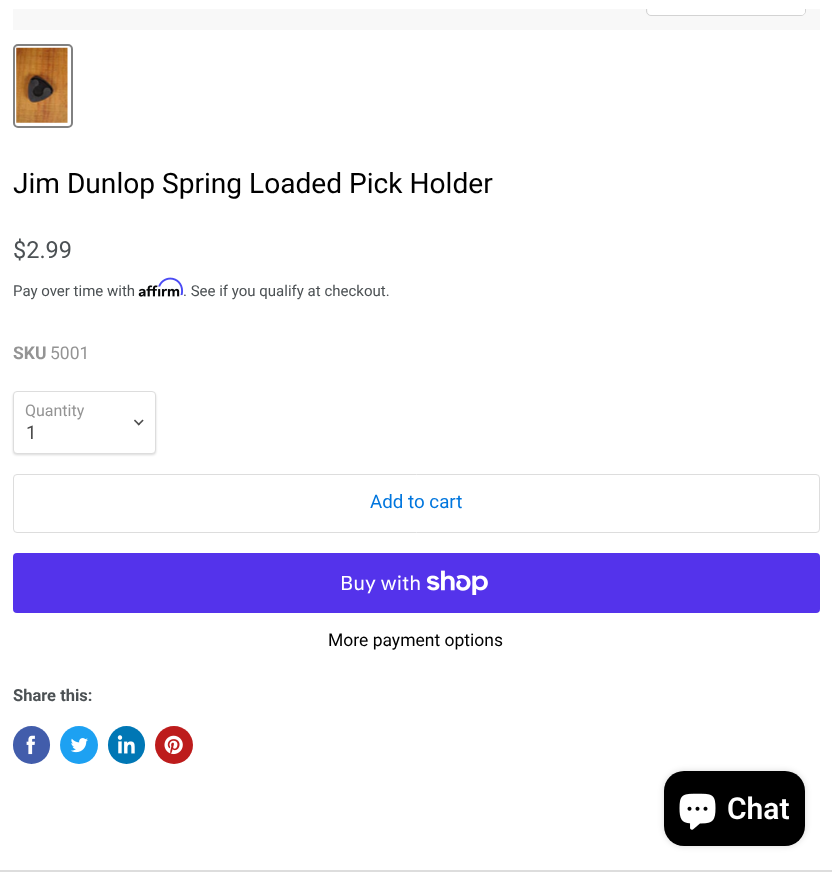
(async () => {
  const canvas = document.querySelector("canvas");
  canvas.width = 832;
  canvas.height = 872;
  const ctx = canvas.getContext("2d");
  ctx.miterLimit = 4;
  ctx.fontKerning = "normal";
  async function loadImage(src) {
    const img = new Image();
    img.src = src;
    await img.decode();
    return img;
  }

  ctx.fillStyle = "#ffffff";
  ctx.fillRect(0, 0, 832, 872);
  ctx.fillStyle = "#f8f8f8";
  ctx.fillRect(13, 9, 807, 21);
  ctx.save();
  ctx.beginPath();
  ctx.rect(13, 9, 807, 21);
  ctx.clip();
  ctx.beginPath();
  ctx.roundRect(646.5, -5.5, 159, 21, 4.5);
  ctx.strokeStyle = "#d3d3d3";
  ctx.stroke();
  ctx.restore();
  ctx.fillStyle = "rgba(255, 255, 255, 0.9)";
  ctx.beginPath();
  ctx.roundRect(648, 9, 157, 6, [0, 0, 4, 4]);
  ctx.fill();
  ctx.beginPath();
  ctx.roundRect(14, 45, 58, 82, 4);
  ctx.strokeStyle = "#818181";
  ctx.lineWidth = 2;
  ctx.stroke();
  ctx.drawImage(await loadImage("img/1.png"), 16, 47, 52, 76);
  ctx.drawImage(await loadImage("img/3.png"), 138, 285, 42, 12);
  ctx.drawImage(await loadImage("img/2.png"), 158, 277, 25, 19);
  ctx.fillStyle = "rgba(0, 0, 0, 0.15)";
  ctx.filter = "blur(1px)";
  ctx.beginPath();
  ctx.roundRect(13, 393, 143, 62, 4);
  ctx.fill();
  ctx.filter = "none";
  ctx.fillStyle = "#ffffff";
  ctx.beginPath();
  ctx.roundRect(13.5, 391.5, 142, 62, 3.5);
  ctx.fill();
  ctx.strokeStyle = "#dddddd";
  ctx.lineWidth = 1;
  ctx.stroke();
  ctx.drawImage(await loadImage("img/4.png"), 134, 419, 10, 7);
  ctx.beginPath();
  ctx.roundRect(13.5, 474.5, 806, 58, 3.5);
  ctx.stroke();
  ctx.fillStyle = "#5433eb";
  ctx.beginPath();
  ctx.roundRect(13, 553, 807, 60, 4);
  ctx.fill();
  ctx.drawImage(await loadImage("img/5.png"), 426, 570, 62, 25);
  ctx.fillStyle = "#425dab";
  ctx.beginPath();
  ctx.roundRect(13, 726, 37, 38, 18.5);
  ctx.fill();
  ctx.drawImage(await loadImage("img/6.png"), 26, 735, 9, 20);
  ctx.fillStyle = "#1da1f2";
  ctx.beginPath();
  ctx.arc(79, 745, 19, 0, Math.PI * 2);
  ctx.fill();
  ctx.drawImage(await loadImage("img/7.png"), 70, 738, 18, 15);
  ctx.fillStyle = "#0077b5";
  ctx.beginPath();
  ctx.roundRect(108, 726, 37, 38, 18.5);
  ctx.fill();
  ctx.drawImage(await loadImage("img/8.png"), 117, 735, 18, 19);
  ctx.fillStyle = "#bd1c1c";
  ctx.beginPath();
  ctx.arc(174, 745, 19, 0, Math.PI * 2);
  ctx.fill();
  ctx.drawImage(await loadImage("img/9.png"), 164, 735, 19, 20);
  ctx.fillStyle = "rgba(0, 0, 0, 0.15)";
  ctx.filter = "blur(3px)";
  ctx.beginPath();
  ctx.roundRect(664, 771, 141, 75, 20);
  ctx.fill();
  ctx.filter = "none";
  ctx.fillStyle = "#000000";
  ctx.beginPath();
  ctx.roundRect(664, 771, 141, 75, 20);
  ctx.fill();
  ctx.drawImage(await loadImage("img/10.png"), 679, 793, 37, 37);
  ctx.fillStyle = "#dddddd";
  ctx.fillRect(0, 870, 832, 2);
  ctx.font = "28.1px Roboto";
  ctx.fillStyle = "#000000";
  ctx.fillText("Jim Dunlop Spring Loaded Pick Holder", 13, 193);
  ctx.font = "23.5px Roboto";
  ctx.fillStyle = "#4c5154";
  ctx.fillText("$2.99", 13, 258);
  ctx.font = "15px Roboto";
  ctx.fillText("Pay over time with", 13, 296);
  ctx.fillText(". See if you qualify at checkout.", 183, 296);
  ctx.font = "bold 17.5px Roboto";
  ctx.fillStyle = "#949494";
  ctx.fillText("SKU", 13, 359);
  ctx.font = "17.5px Roboto";
  ctx.fillText("5001", 50, 359);
  ctx.font = "16px Roboto";
  ctx.fillText("Quantity", 25, 416);
  ctx.font = "18.75px Roboto";
  ctx.fillStyle = "#4d4d4d";
  ctx.fillText("1", 26, 439);
  ctx.fillStyle = "#0076de";
  ctx.fillText("Add to cart", 370, 508);
  ctx.font = "20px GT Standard";
  ctx.fillStyle = "#ffffff";
  ctx.fillText("Buy with", 340, 590);
  ctx.font = "17.5px Roboto";
  ctx.fillStyle = "#000000";
  ctx.fillText("More payment options", 328, 646);
  ctx.font = "bold 16.5px Roboto";
  ctx.fillStyle = "#4c5154";
  ctx.fillText("Share this:", 13, 701);
  ctx.font = "600 30px Roboto";
  ctx.fillStyle = "#ffffff";
  ctx.fillText("Chat", 727, 819);
})();
